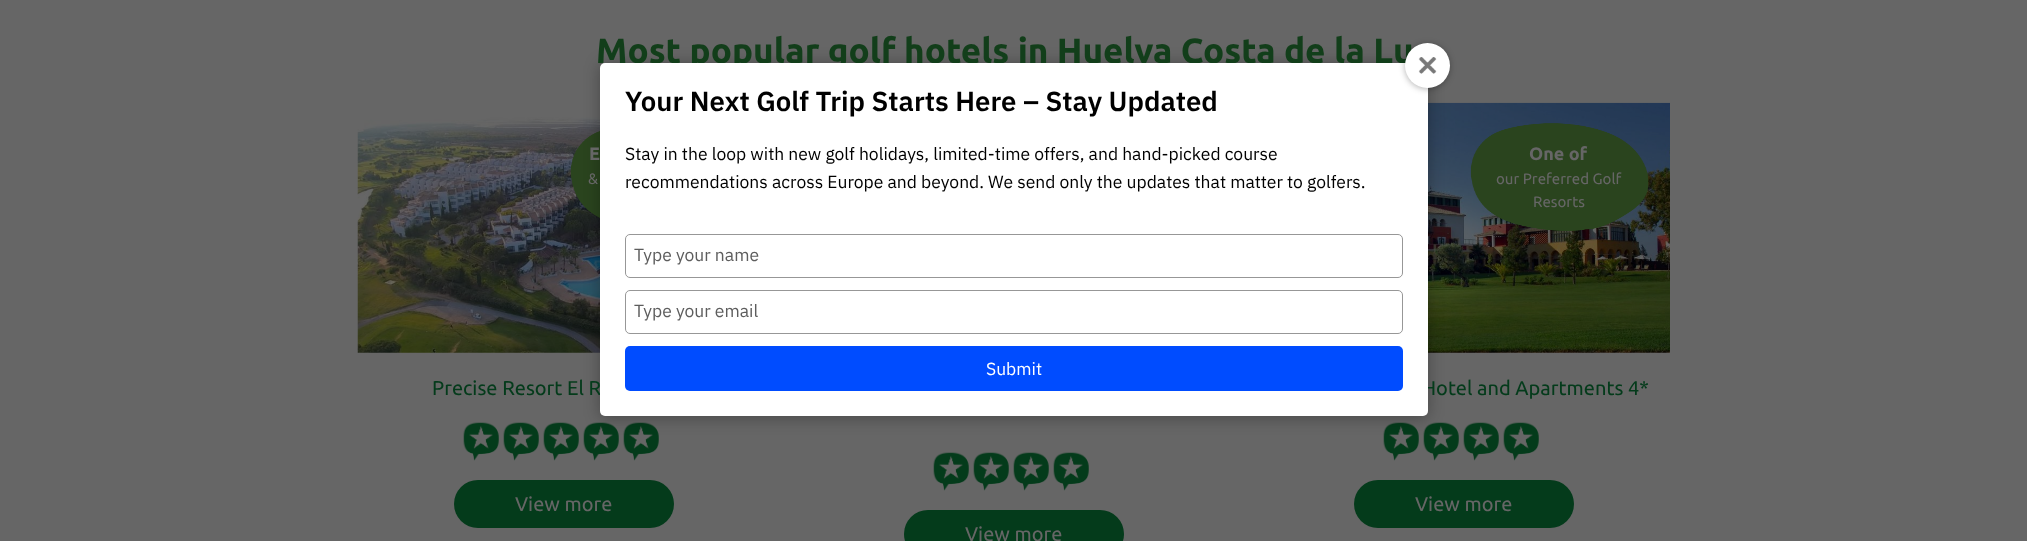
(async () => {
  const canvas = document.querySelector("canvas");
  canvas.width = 2027;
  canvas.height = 541;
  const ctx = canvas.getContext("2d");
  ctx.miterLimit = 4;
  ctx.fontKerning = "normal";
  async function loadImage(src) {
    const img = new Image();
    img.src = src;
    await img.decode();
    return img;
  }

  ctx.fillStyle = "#666666";
  ctx.fillRect(0, 0, 2027, 541);
  ctx.drawImage(await loadImage("img/1.png"), 357, 117, 243, 236);
  ctx.drawImage(await loadImage("img/2.png"), 570, 131, 30, 87);
  ctx.drawImage(await loadImage("img/3.png"), 463, 422, 36, 39);
  ctx.drawImage(await loadImage("img/3.png"), 503, 422, 36, 39);
  ctx.drawImage(await loadImage("img/3.png"), 543, 422, 36, 39);
  ctx.drawImage(await loadImage("img/3.png"), 583, 422, 36, 39);
  ctx.drawImage(await loadImage("img/3.png"), 623, 422, 36, 39);
  ctx.fillStyle = "#043b1b";
  ctx.beginPath();
  ctx.roundRect(454, 480, 220, 48, 24);
  ctx.fill();
  ctx.drawImage(await loadImage("img/4.png"), 1428, 102, 242, 251);
  ctx.drawImage(await loadImage("img/5.png"), 1470, 123, 179, 108);
  ctx.drawImage(await loadImage("img/3.png"), 1383, 422, 36, 39);
  ctx.drawImage(await loadImage("img/3.png"), 1423, 422, 36, 39);
  ctx.drawImage(await loadImage("img/3.png"), 1463, 422, 36, 39);
  ctx.drawImage(await loadImage("img/3.png"), 1503, 422, 36, 39);
  ctx.beginPath();
  ctx.roundRect(1354, 480, 220, 48, 24);
  ctx.fill();
  ctx.drawImage(await loadImage("img/3.png"), 933, 452, 36, 39);
  ctx.drawImage(await loadImage("img/3.png"), 973, 452, 36, 39);
  ctx.drawImage(await loadImage("img/3.png"), 1013, 452, 36, 39);
  ctx.drawImage(await loadImage("img/3.png"), 1053, 452, 36, 39);
  ctx.beginPath();
  ctx.roundRect(904, 510, 220, 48, 24);
  ctx.fill();
  ctx.fillStyle = "rgba(0, 0, 0, 0.3)";
  ctx.filter = "blur(8px)";
  ctx.beginPath();
  ctx.roundRect(600, 64, 828, 354, 5);
  ctx.fill();
  ctx.filter = "none";
  ctx.font = "bold 35px Ubuntu";
  ctx.fillStyle = "#123e1a";
  ctx.fillText("Most popular golf hotels in Huelva Costa de la Lu", 596, 63);
  ctx.font = "bold 18px Ubuntu";
  ctx.fillStyle = "#666666";
  ctx.fillText("E", 589, 160);
  ctx.font = "15px Ubuntu";
  ctx.fillText("&", 588, 184);
  ctx.font = "20px Ubuntu";
  ctx.fillStyle = "#043b1b";
  ctx.fillText("Precise Resort El R", 432, 395);
  ctx.fillStyle = "#666666";
  ctx.fillText("View more", 515, 511);
  ctx.font = "bold 18px Ubuntu";
  ctx.fillText("One of", 1529, 160);
  ctx.font = "15px Ubuntu";
  ctx.fillText("our Preferred Golf", 1496, 184);
  ctx.fillText("Resorts", 1533, 207);
  ctx.font = "20px Ubuntu";
  ctx.fillStyle = "#043b1b";
  ctx.fillText("Hotel and Apartments 4*", 1422, 395);
  ctx.fillStyle = "#666666";
  ctx.fillText("View more", 1415, 511);
  ctx.fillText("View more", 965, 541);
  ctx.fillStyle = "#ffffff";
  ctx.beginPath();
  ctx.roundRect(600, 63, 828, 353, 5);
  ctx.fill();
  ctx.fillStyle = "rgba(0, 0, 0, 0.3)";
  ctx.filter = "blur(3px)";
  ctx.beginPath();
  ctx.roundRect(1405, 44, 45, 45, 22.5);
  ctx.fill();
  ctx.filter = "none";
  ctx.fillStyle = "#ffffff";
  ctx.beginPath();
  ctx.arc(1427.5, 65.5, 22.5, 0, Math.PI * 2);
  ctx.fill();
  ctx.drawImage(await loadImage("img/6.png"), 1418, 57, 19, 17);
  ctx.font = "600 27.5px IBM Plex Sans";
  ctx.fillStyle = "#000000";
  ctx.fillText("Your Next Golf Trip Starts Here – Stay Updated", 625, 111);
  ctx.font = "17.5px IBM Plex Sans";
  ctx.fillText("Stay in the loop with new golf holidays, limited-time offers, and hand-picked course", 625, 160);
  ctx.fillText("recommendations across Europe and beyond. We send only the updates that matter to golfers.", 625, 188);
  ctx.beginPath();
  ctx.roundRect(625.5, 234.5, 777, 43, 4.5);
  ctx.strokeStyle = "#979797";
  ctx.stroke();
  ctx.fillStyle = "#5d5d5d";
  ctx.fillText("Type your name", 634, 261);
  ctx.beginPath();
  ctx.roundRect(625.5, 290.5, 777, 43, 4.5);
  ctx.stroke();
  ctx.fillText("Type your email", 634, 317);
  ctx.fillStyle = "#004cff";
  ctx.beginPath();
  ctx.roundRect(625, 346, 778, 45, 5);
  ctx.fill();
  ctx.fillStyle = "#ffffff";
  ctx.fillText("Submit", 986, 375);
})();
